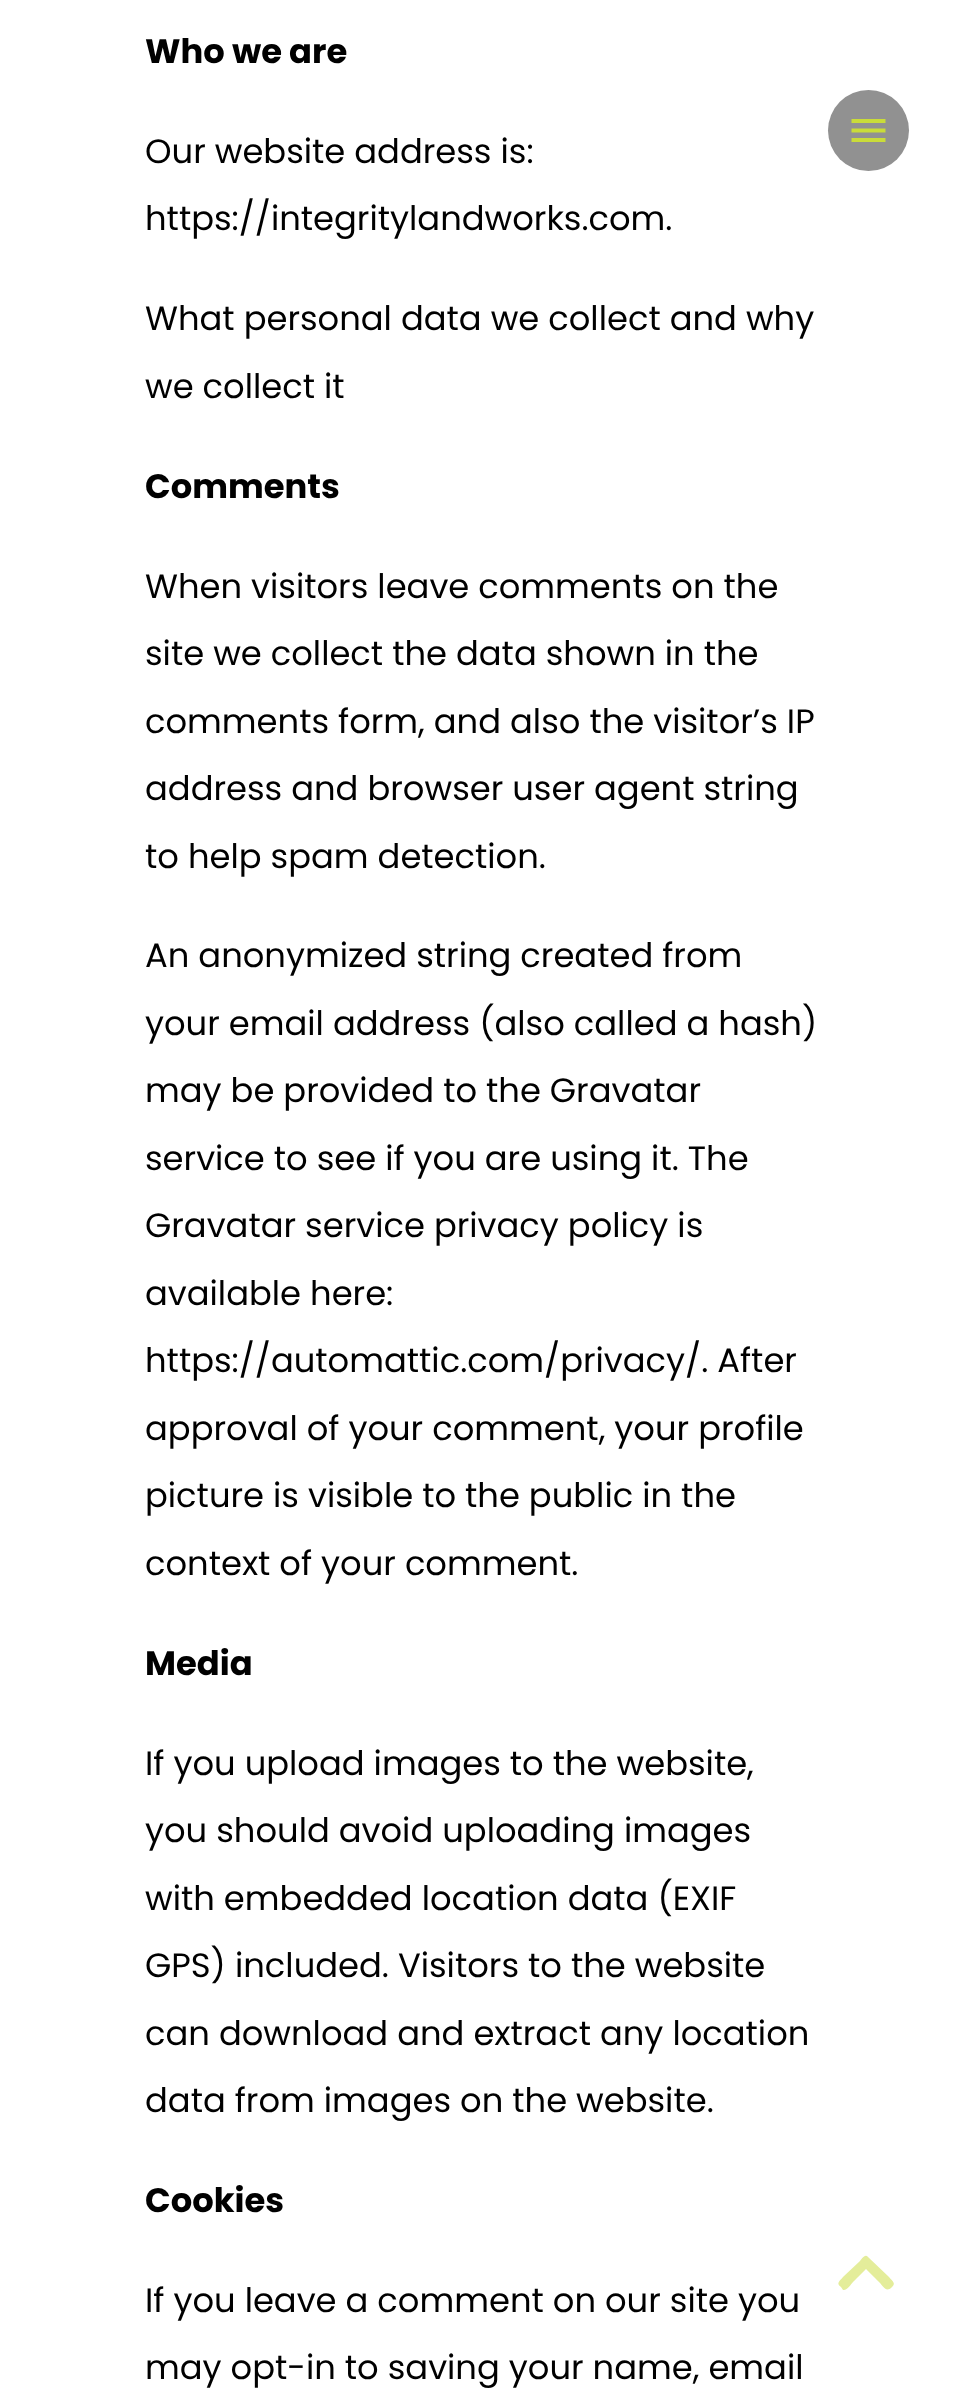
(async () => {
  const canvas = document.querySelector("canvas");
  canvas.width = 965;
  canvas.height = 2389;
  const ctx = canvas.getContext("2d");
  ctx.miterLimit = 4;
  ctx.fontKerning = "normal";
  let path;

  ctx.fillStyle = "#ffffff";
  ctx.fillRect(0, 0, 965, 2389);
  ctx.fillStyle = "#919191";
  ctx.beginPath();
  ctx.arc(868.5, 130.5, 40.5, 0, Math.PI * 2);
  ctx.fill();
  ctx.fillStyle = "#cadc39";
  path = new Path2D("M851.5 142V138H885.5V142ZM851.5 132.5V128.5H885.5V132.5ZM851.5 123V119H885.5V123Z");
  ctx.fill(path);
  ctx.fillStyle = "#e4ed9a";
  path = new Path2D("M868 2257L889 2277C893 2282 896 2283 892 2287C886 2293 884 2287 879 2282L866 2269L853 2282C851 2284 847 2291 843 2290L841 2287C836 2283 839 2282 843 2277L860 2261C861 2260 865 2253 868 2257Z");
  ctx.fill(path);
  ctx.font = "bold 33.75px Poppins";
  ctx.fillStyle = "#000000";
  ctx.fillText("Who we are", 145, 63);
  ctx.font = "33.75px Poppins";
  for (const [text, x, y] of [
    ["Our website address is:", 145, 163],
    ["https://integritylandworks.com.", 145, 230],
    ["What personal data we collect and why", 145, 330],
    ["we collect it", 145, 398],
  ]) {
    ctx.fillText(text, x, y);
  }
  ctx.font = "bold 33.75px Poppins";
  ctx.fillText("Comments", 145, 498);
  ctx.font = "33.75px Poppins";
  for (const [text, x, y] of [
    ["When visitors leave comments on the", 145, 598],
    ["site we collect the data shown in the", 145, 665],
    ["comments form, and also the visitor’s IP", 145, 733],
    ["address and browser user agent string", 145, 800],
    ["to help spam detection.", 145, 868],
    ["An anonymized string created from", 145, 967],
    ["your email address (also called a hash)", 145, 1035],
    ["may be provided to the Gravatar", 145, 1102],
    ["service to see if you are using it. The", 145, 1170],
    ["Gravatar service privacy policy is", 145, 1237],
    ["available here:", 145, 1305],
    ["https://automattic.com/privacy/. After", 145, 1372],
    ["approval of your comment, your profile", 145, 1440],
    ["picture is visible to the public in the", 145, 1507],
    ["context of your comment.", 145, 1575],
  ]) {
    ctx.fillText(text, x, y);
  }
  ctx.font = "bold 33.75px Poppins";
  ctx.fillText("Media", 145, 1675);
  ctx.font = "33.75px Poppins";
  for (const [text, x, y] of [
    ["If you upload images to the website,", 145, 1775],
    ["you should avoid uploading images", 145, 1842],
    ["with embedded location data (EXIF", 145, 1910],
    ["GPS) included. Visitors to the website", 145, 1977],
    ["can download and extract any location", 145, 2045],
    ["data from images on the website.", 145, 2112],
  ]) {
    ctx.fillText(text, x, y);
  }
  ctx.font = "bold 33.75px Poppins";
  ctx.fillText("Cookies", 145, 2212);
  ctx.font = "33.75px Poppins";
  ctx.fillText("If you leave a comment on our site you", 145, 2312);
  ctx.fillText("may opt-in to saving your name, email", 145, 2379);
})();
